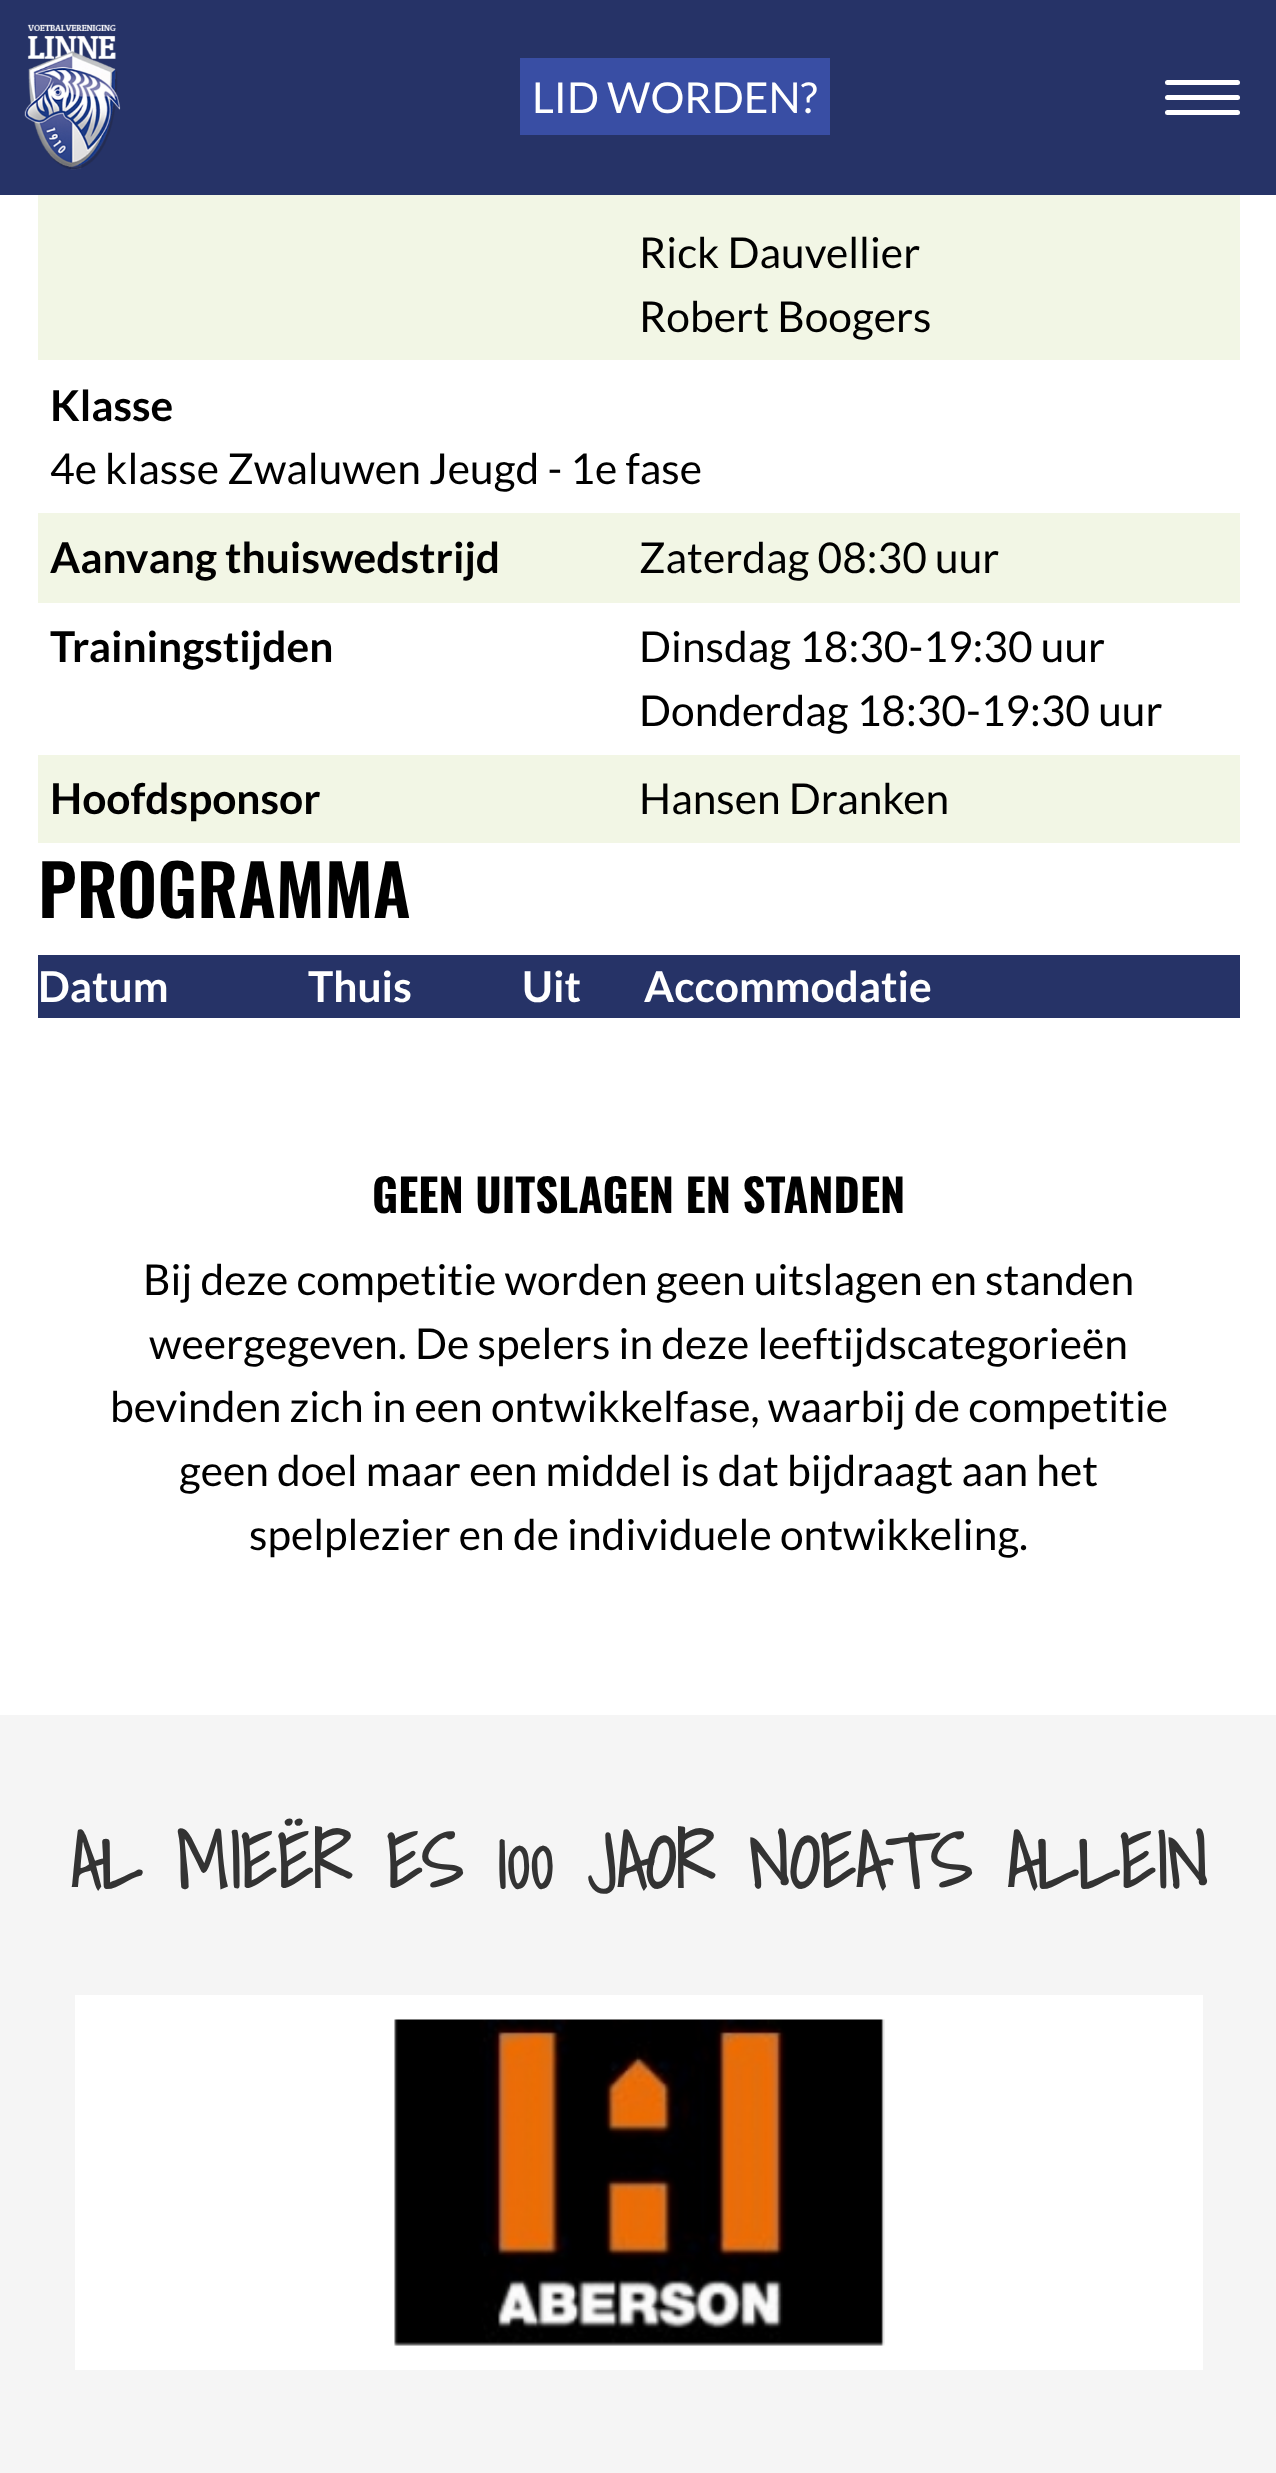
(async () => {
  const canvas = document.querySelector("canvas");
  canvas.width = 1276;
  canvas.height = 2473;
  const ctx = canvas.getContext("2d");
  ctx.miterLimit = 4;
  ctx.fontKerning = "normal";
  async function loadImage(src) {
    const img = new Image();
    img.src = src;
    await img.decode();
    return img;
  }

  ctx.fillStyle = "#ffffff";
  ctx.fillRect(0, 0, 1276, 2473);
  ctx.fillStyle = "#263367";
  ctx.fillRect(0, 0, 1276, 195);
  ctx.drawImage(await loadImage("img/1.png"), 24, 24, 97, 146);
  ctx.fillStyle = "#394ea4";
  ctx.fillRect(520, 58, 310, 77);
  ctx.fillStyle = "#ffffff";
  ctx.beginPath();
  ctx.roundRect(1165, 80, 75, 5, 2.5);
  ctx.fill();
  ctx.beginPath();
  ctx.roundRect(1165, 95, 75, 5, 2.5);
  ctx.fill();
  ctx.beginPath();
  ctx.roundRect(1165, 110, 75, 5, 2.5);
  ctx.fill();
  for (const [x, y, w, h, color] of [
    [38, 195, 1202, 165, "#f2f6e5"],
    [38, 513, 1202, 90, "#f2f6e5"],
    [38, 755, 1202, 88, "#f2f6e5"],
    [38, 955, 1202, 63, "#263367"],
    [0, 1715, 1276, 758, "#f5f5f5"],
    [75, 1995, 1128, 375, "#ffffff"],
  ]) {
    ctx.fillStyle = color;
    ctx.fillRect(x, y, w, h);
  }
  ctx.drawImage(await loadImage("img/2.png"), 394, 2019, 491, 327);
  ctx.font = "42.5px Lato";
  ctx.fillText("LID WORDEN?", 532, 113);
  ctx.fillStyle = "#000000";
  ctx.fillText("Rick Dauvellier", 639, 268);
  ctx.fillText("Robert Boogers", 639, 332);
  ctx.font = "bold 42.5px Lato";
  ctx.fillText("Klasse", 50, 421);
  ctx.font = "42.5px Lato";
  ctx.fillText("4e klasse Zwaluwen Jeugd - 1e fase", 50, 484);
  ctx.font = "bold 42.5px Lato";
  ctx.fillText("Aanvang thuiswedstrijd", 50, 573);
  ctx.font = "42.5px Lato";
  ctx.fillText("Zaterdag 08:30 uur", 639, 573);
  ctx.font = "bold 42.5px Lato";
  ctx.fillText("Trainingstijden", 50, 662);
  ctx.font = "42.5px Lato";
  ctx.fillText("Dinsdag 18:30-19:30 uur", 639, 662);
  ctx.fillText("Donderdag 18:30-19:30 uur", 639, 726);
  ctx.font = "bold 42.5px Lato";
  ctx.fillText("Hoofdsponsor", 50, 814);
  ctx.font = "42.5px Lato";
  ctx.fillText("Hansen Dranken", 639, 814);
  ctx.font = "600 70px Oswald";
  ctx.fillText("PROGRAMMA", 38, 918);
  ctx.font = "bold 42.5px Lato";
  ctx.fillStyle = "#ffffff";
  for (const [text, x, y] of [
    ["Datum", 38, 1002],
    ["Thuis", 308, 1002],
    ["Uit", 522, 1002],
    ["Accommodatie", 644, 1002],
  ]) {
    ctx.fillText(text, x, y);
  }
  ctx.font = "bold 45px Oswald";
  ctx.fillStyle = "#000000";
  ctx.fillText("GEEN UITSLAGEN EN STANDEN", 372, 1213);
  ctx.font = "42.5px Lato";
  for (const [text, x, y] of [
    ["Bij deze competitie worden geen uitslagen en standen", 143, 1295],
    ["weergegeven. De spelers in deze leeftijdscategorieën", 149, 1359],
    ["bevinden zich in een ontwikkelfase, waarbij de competitie", 110, 1422],
    ["geen doel maar een middel is dat bijdraagt aan het", 179, 1486],
    ["spelplezier en de individuele ontwikkeling.", 249, 1550],
  ]) {
    ctx.fillText(text, x, y);
  }
  ctx.font = "bold 76.5px Shadows Into Light";
  ctx.fillStyle = "#333333";
  ctx.fillText("AL MIEËR ES 100 JAOR NOEATS ALLEIN", 70, 1889);
})();
